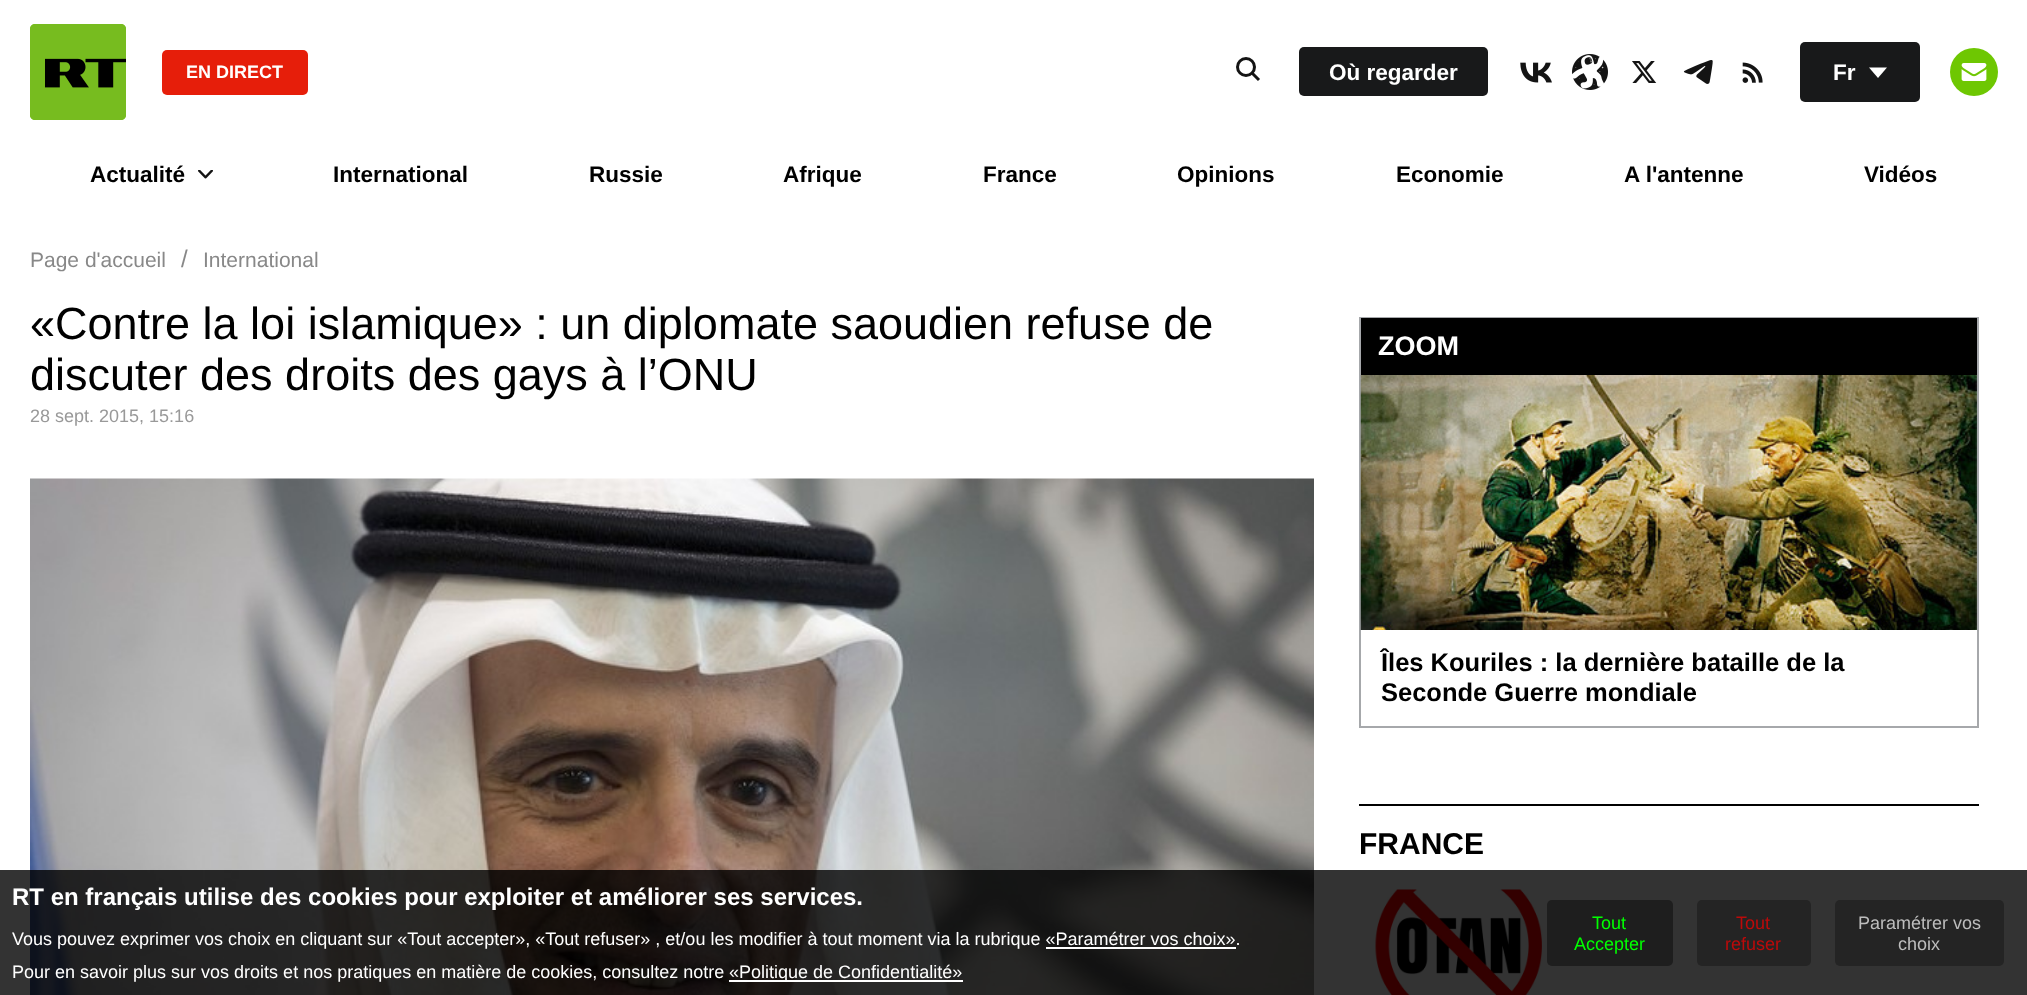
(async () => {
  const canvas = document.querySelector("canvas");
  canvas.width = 2027;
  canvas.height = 995;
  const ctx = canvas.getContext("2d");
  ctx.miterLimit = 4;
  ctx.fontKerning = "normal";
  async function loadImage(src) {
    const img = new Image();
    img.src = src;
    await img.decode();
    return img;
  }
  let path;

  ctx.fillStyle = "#ffffff";
  ctx.fillRect(0, 0, 2027, 995);
  ctx.drawImage(await loadImage("img/1.png"), 30, 24, 96, 96);
  ctx.fillStyle = "#e61e0a";
  ctx.beginPath();
  ctx.roundRect(162, 50, 146, 45, 5);
  ctx.fill();
  ctx.beginPath();
  ctx.arc(1246, 67, 8.5, 0, Math.PI * 2);
  ctx.strokeStyle = "#141414";
  ctx.lineWidth = 3;
  ctx.stroke();
  path = new Path2D("M1252.5 73.5L1259 80");
  ctx.stroke(path);
  ctx.fillStyle = "#18191a";
  ctx.beginPath();
  ctx.roundRect(1299, 47, 189, 49, 5);
  ctx.fill();
  ctx.drawImage(await loadImage("img/2.png"), 1520, 62, 32, 21);
  ctx.drawImage(await loadImage("img/3.png"), 1572, 54, 36, 36);
  ctx.drawImage(await loadImage("img/4.png"), 1632, 61, 25, 22);
  ctx.drawImage(await loadImage("img/5.png"), 1683, 60, 30, 24);
  ctx.drawImage(await loadImage("img/6.png"), 1742, 62, 21, 21);
  ctx.beginPath();
  ctx.roundRect(1800, 42, 120, 60, 5);
  ctx.fill();
  ctx.fillStyle = "#ffffff";
  path = new Path2D("M1869 67.5H1887L1878 78Z");
  ctx.fill(path);
  ctx.fillStyle = "#6ec702";
  ctx.beginPath();
  ctx.arc(1974, 72, 24, 0, Math.PI * 2);
  ctx.fill();
  ctx.drawImage(await loadImage("img/7.png"), 1961, 63, 26, 18);
  ctx.drawImage(await loadImage("img/8.png"), 198, 170, 15, 9);
  ctx.drawImage(await loadImage("img/9.png"), 30, 478, 1284, 517);
  ctx.strokeStyle = "#a6a8ab";
  ctx.lineWidth = 2;
  ctx.strokeRect(1360, 318, 618, 409);
  ctx.fillStyle = "#000000";
  ctx.fillRect(1361, 318, 616, 57);
  ctx.drawImage(await loadImage("img/10.png"), 1360, 375, 617, 255);
  ctx.fillRect(1359, 804, 620, 2);
  ctx.drawImage(await loadImage("img/11.png"), 1375, 889, 168, 106);
  for (const [x, y, w, h, color] of [
    [0, 870, 2027, 125, "rgba(0, 0, 0, 0.8)"],
    [1046, 947, 190, 2, "#ffffff"],
    [729, 980, 234, 2, "#ffffff"],
  ]) {
    ctx.fillStyle = color;
    ctx.fillRect(x, y, w, h);
  }
  ctx.fillStyle = "#1e1e1e";
  ctx.beginPath();
  ctx.roundRect(1547, 900, 126, 66, 5);
  ctx.fill();
  ctx.fillStyle = "rgba(30, 30, 30, 0.7)";
  ctx.beginPath();
  ctx.roundRect(1697, 900, 114, 66, 5);
  ctx.fill();
  ctx.beginPath();
  ctx.roundRect(1835, 900, 169, 66, 5);
  ctx.fill();
  ctx.font = "bold 18px Liberation Sans";
  ctx.fillStyle = "#ffffff";
  ctx.fillText("EN DIRECT", 186, 78);
  ctx.font = "bold 22.5px Liberation Sans";
  ctx.fillText("Où regarder", 1329, 80);
  ctx.fillText("Fr", 1833, 80);
  ctx.fillStyle = "#000000";
  for (const [text, x, y] of [
    ["Actualité", 90, 182],
    ["International", 333, 182],
    ["Russie", 589, 182],
    ["Afrique", 783, 182],
    ["France", 983, 182],
    ["Opinions", 1177, 182],
    ["Economie", 1396, 182],
    ["A l'antenne", 1624, 182],
    ["Vidéos", 1864, 182],
  ]) {
    ctx.fillText(text, x, y);
  }
  ctx.font = "21px Liberation Sans";
  ctx.fillStyle = "#888888";
  ctx.fillText("Page d'accueil", 30, 267);
  ctx.font = "24px Liberation Sans";
  ctx.fillText("/", 181, 267);
  ctx.font = "21px Liberation Sans";
  ctx.fillText("International", 203, 267);
  ctx.font = "45px Liberation Sans";
  ctx.fillStyle = "#000000";
  ctx.fillText("«Contre la loi islamique» : un diplomate saoudien refuse de", 30, 339);
  ctx.fillText("discuter des droits des gays à l’ONU", 30, 390);
  ctx.font = "18px Liberation Sans";
  ctx.fillStyle = "#999999";
  ctx.fillText("28 sept. 2015, 15:16", 30, 422);
  ctx.font = "bold 27px Liberation Sans";
  ctx.fillStyle = "#ffffff";
  ctx.fillText("ZOOM", 1378, 355);
  ctx.font = "bold 25.5px Liberation Sans";
  ctx.fillStyle = "#000000";
  ctx.fillText("Îles Kouriles : la dernière bataille de la", 1381, 671);
  ctx.fillText("Seconde Guerre mondiale", 1381, 701);
  ctx.font = "bold 30px Liberation Sans";
  ctx.fillText("FRANCE", 1359, 854);
  ctx.font = "bold 24px Liberation Sans";
  ctx.fillStyle = "#ffffff";
  ctx.fillText("RT en français utilise des cookies pour exploiter et améliorer ses services.", 12, 905);
  ctx.font = "18px Liberation Sans";
  for (const [text, x, y] of [
    ["Vous pouvez exprimer vos choix en cliquant sur «Tout accepter», «Tout refuser» , et/ou les modifier à tout moment via la rubrique «Paramétrer vos choix».", 12, 945],
    ["Pour en savoir plus sur vos droits et nos pratiques en matière de cookies, consultez notre", 12, 978],
    ["«Politique de Confidentialité»", 729, 978],
  ]) {
    ctx.fillText(text, x, y);
  }
  ctx.fillStyle = "#00ff00";
  ctx.fillText("Tout", 1592, 929);
  ctx.fillText("Accepter", 1574, 950);
  ctx.fillStyle = "#bc0a0a";
  ctx.fillText("Tout", 1736, 929);
  ctx.fillText("refuser", 1725, 950);
  ctx.fillStyle = "#bdbdbd";
  ctx.fillText("Paramétrer vos", 1858, 929);
  ctx.fillText("choix", 1898, 950);
})();
